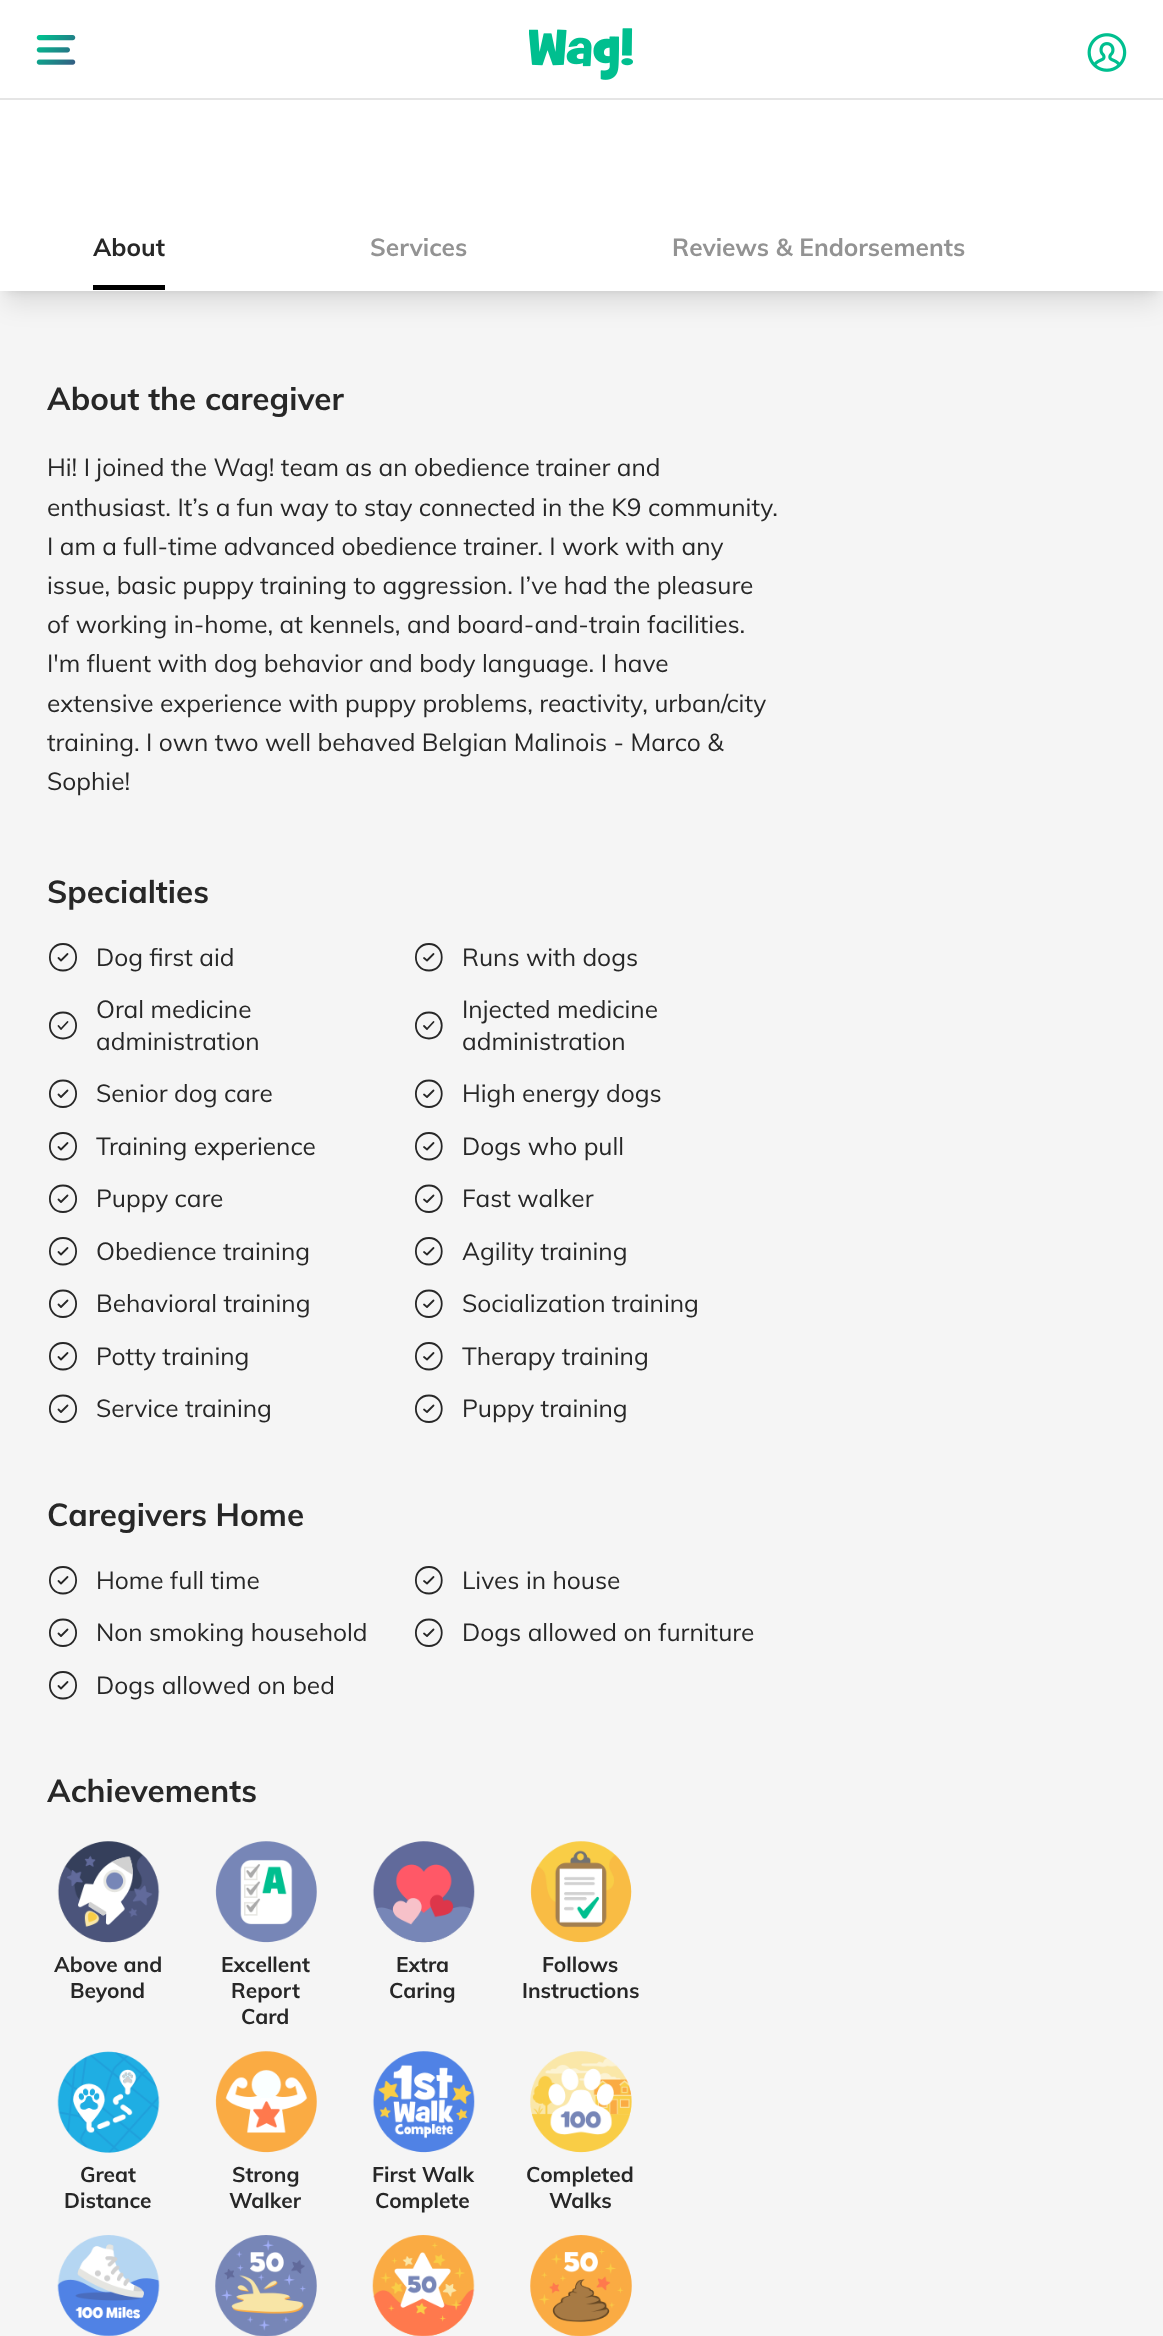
(async () => {
  const canvas = document.querySelector("canvas");
  canvas.width = 1163;
  canvas.height = 2336;
  const ctx = canvas.getContext("2d");
  ctx.miterLimit = 4;
  ctx.fontKerning = "normal";
  async function loadImage(src) {
    const img = new Image();
    img.src = src;
    await img.decode();
    return img;
  }
  let path;

  ctx.fillStyle = "#ffffff";
  ctx.fillRect(0, 0, 1163, 2336);
  ctx.fillStyle = "#f5f5f5";
  ctx.fillRect(0, 291, 1163, 2045);
  ctx.save();
  path = new Path2D("M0 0H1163V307H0ZM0-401H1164V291H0Z");
  ctx.clip(path, "evenodd");
  ctx.fillStyle = "rgba(0, 0, 0, 0.1)";
  ctx.filter = "blur(5px)";
  ctx.beginPath();
  ctx.rect(7, -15, 1150, 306);
  ctx.fill();
  ctx.filter = "none";
  ctx.restore();
  ctx.save();
  path = new Path2D("M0 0H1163V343H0ZM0-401H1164V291H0Z");
  ctx.clip(path, "evenodd");
  ctx.fillStyle = "rgba(0, 0, 0, 0.1)";
  ctx.filter = "blur(13px)";
  ctx.beginPath();
  ctx.rect(5, -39, 1154, 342);
  ctx.fill();
  ctx.filter = "none";
  ctx.restore();
  ctx.fillStyle = "#e5e5e5";
  ctx.fillRect(0, 98, 1163, 2);
  ctx.drawImage(await loadImage("img/1.png"), 36, 35, 40, 30);
  ctx.drawImage(await loadImage("img/2.png"), 529, 28, 104, 52);
  ctx.drawImage(await loadImage("img/3.png"), 1087, 33, 40, 39);
  ctx.fillStyle = "#000000";
  ctx.fillRect(93, 285, 72, 5);
  path = new Path2D("M63 970.5C80.5 970.5 80.5 944 63 944C45.5 944 45.5 970.5 63 970.5Z");
  ctx.strokeStyle = "#272727";
  ctx.lineWidth = 1.8;
  ctx.stroke(path);
  path = new Path2D("M58.5 958L61 960.5L67.5 954");
  ctx.lineCap = "round";
  ctx.lineJoin = "round";
  ctx.stroke(path);
  path = new Path2D("M429 970.5C446 970.5 446 944 429 944C411.5 944 411.5 970.5 429 970.5Z");
  ctx.lineCap = "butt";
  ctx.lineJoin = "miter";
  ctx.stroke(path);
  path = new Path2D("M424 958L427 960.5L433.5 954");
  ctx.lineCap = "round";
  ctx.lineJoin = "round";
  ctx.stroke(path);
  path = new Path2D("M63 1038.5C80.5 1038.5 80.5 1012.5 63 1012.5C45.5 1012.5 45.5 1038.5 63 1038.5Z");
  ctx.lineCap = "butt";
  ctx.lineJoin = "miter";
  ctx.stroke(path);
  path = new Path2D("M58.5 1026L61 1029L67.5 1022");
  ctx.lineCap = "round";
  ctx.lineJoin = "round";
  ctx.stroke(path);
  path = new Path2D("M429 1038.5C446 1038.5 446 1012.5 429 1012.5C411.5 1012.5 411.5 1038.5 429 1038.5Z");
  ctx.lineCap = "butt";
  ctx.lineJoin = "miter";
  ctx.stroke(path);
  path = new Path2D("M424 1026L427 1029L433.5 1022");
  ctx.lineCap = "round";
  ctx.lineJoin = "round";
  ctx.stroke(path);
  path = new Path2D("M63 1107C80.5 1107 80.5 1080.5 63 1080.5C45.5 1080.5 45.5 1107 63 1107Z");
  ctx.lineCap = "butt";
  ctx.lineJoin = "miter";
  ctx.stroke(path);
  path = new Path2D("M58.5 1094.5L61 1097L67.5 1090.5");
  ctx.lineCap = "round";
  ctx.lineJoin = "round";
  ctx.stroke(path);
  path = new Path2D("M429 1107C446 1107 446 1080.5 429 1080.5C411.5 1080.5 411.5 1107 429 1107Z");
  ctx.lineCap = "butt";
  ctx.lineJoin = "miter";
  ctx.stroke(path);
  path = new Path2D("M424 1094.5L427 1097L433.5 1090.5");
  ctx.lineCap = "round";
  ctx.lineJoin = "round";
  ctx.stroke(path);
  path = new Path2D("M63 1159.5C80.5 1159.5 80.5 1133 63 1133C45.5 1133 45.5 1159.5 63 1159.5Z");
  ctx.lineCap = "butt";
  ctx.lineJoin = "miter";
  ctx.stroke(path);
  path = new Path2D("M58.5 1147L61 1149.5L67.5 1143");
  ctx.lineCap = "round";
  ctx.lineJoin = "round";
  ctx.stroke(path);
  path = new Path2D("M429 1159.5C446 1159.5 446 1133 429 1133C411.5 1133 411.5 1159.5 429 1159.5Z");
  ctx.lineCap = "butt";
  ctx.lineJoin = "miter";
  ctx.stroke(path);
  path = new Path2D("M424 1147L427 1149.5L433.5 1143");
  ctx.lineCap = "round";
  ctx.lineJoin = "round";
  ctx.stroke(path);
  path = new Path2D("M63 1212C80.5 1212 80.5 1185.5 63 1185.5C45.5 1185.5 45.5 1212 63 1212Z");
  ctx.lineCap = "butt";
  ctx.lineJoin = "miter";
  ctx.stroke(path);
  path = new Path2D("M58.5 1199.5L61 1202L67.5 1195.5");
  ctx.lineCap = "round";
  ctx.lineJoin = "round";
  ctx.stroke(path);
  path = new Path2D("M429 1212C446 1212 446 1185.5 429 1185.5C411.5 1185.5 411.5 1212 429 1212Z");
  ctx.lineCap = "butt";
  ctx.lineJoin = "miter";
  ctx.stroke(path);
  path = new Path2D("M424 1199.5L427 1202L433.5 1195.5");
  ctx.lineCap = "round";
  ctx.lineJoin = "round";
  ctx.stroke(path);
  path = new Path2D("M63 1264.5C80.5 1264.5 80.5 1238 63 1238C45.5 1238 45.5 1264.5 63 1264.5Z");
  ctx.lineCap = "butt";
  ctx.lineJoin = "miter";
  ctx.stroke(path);
  path = new Path2D("M58.5 1252L61 1254.5L67.5 1248");
  ctx.lineCap = "round";
  ctx.lineJoin = "round";
  ctx.stroke(path);
  path = new Path2D("M429 1264.5C446 1264.5 446 1238 429 1238C411.5 1238 411.5 1264.5 429 1264.5Z");
  ctx.lineCap = "butt";
  ctx.lineJoin = "miter";
  ctx.stroke(path);
  path = new Path2D("M424 1252L427 1254.5L433.5 1248");
  ctx.lineCap = "round";
  ctx.lineJoin = "round";
  ctx.stroke(path);
  path = new Path2D("M63 1317C80.5 1317 80.5 1290.5 63 1290.5C45.5 1290.5 45.5 1317 63 1317Z");
  ctx.lineCap = "butt";
  ctx.lineJoin = "miter";
  ctx.stroke(path);
  path = new Path2D("M58.5 1304.5L61 1307L67.5 1300.5");
  ctx.lineCap = "round";
  ctx.lineJoin = "round";
  ctx.stroke(path);
  path = new Path2D("M429 1317C446 1317 446 1290.5 429 1290.5C411.5 1290.5 411.5 1317 429 1317Z");
  ctx.lineCap = "butt";
  ctx.lineJoin = "miter";
  ctx.stroke(path);
  path = new Path2D("M424 1304.5L427 1307L433.5 1300.5");
  ctx.lineCap = "round";
  ctx.lineJoin = "round";
  ctx.stroke(path);
  path = new Path2D("M63 1369.5C80.5 1369.5 80.5 1343 63 1343C45.5 1343 45.5 1369.5 63 1369.5Z");
  ctx.lineCap = "butt";
  ctx.lineJoin = "miter";
  ctx.stroke(path);
  path = new Path2D("M58.5 1357L61 1359.5L67.5 1353");
  ctx.lineCap = "round";
  ctx.lineJoin = "round";
  ctx.stroke(path);
  path = new Path2D("M429 1369.5C446 1369.5 446 1343 429 1343C411.5 1343 411.5 1369.5 429 1369.5Z");
  ctx.lineCap = "butt";
  ctx.lineJoin = "miter";
  ctx.stroke(path);
  path = new Path2D("M424 1357L427 1359.5L433.5 1353");
  ctx.lineCap = "round";
  ctx.lineJoin = "round";
  ctx.stroke(path);
  path = new Path2D("M63 1422C80.5 1422 80.5 1395.5 63 1395.5C45.5 1395.5 45.5 1422 63 1422Z");
  ctx.lineCap = "butt";
  ctx.lineJoin = "miter";
  ctx.stroke(path);
  path = new Path2D("M58.5 1409.5L61 1412L67.5 1405.5");
  ctx.lineCap = "round";
  ctx.lineJoin = "round";
  ctx.stroke(path);
  path = new Path2D("M429 1422C446 1422 446 1395.5 429 1395.5C411.5 1395.5 411.5 1422 429 1422Z");
  ctx.lineCap = "butt";
  ctx.lineJoin = "miter";
  ctx.stroke(path);
  path = new Path2D("M424 1409.5L427 1412L433.5 1405.5");
  ctx.lineCap = "round";
  ctx.lineJoin = "round";
  ctx.stroke(path);
  path = new Path2D("M63 1593.5C80.5 1593.5 80.5 1567 63 1567C45.5 1567 45.5 1593.5 63 1593.5Z");
  ctx.lineCap = "butt";
  ctx.lineJoin = "miter";
  ctx.stroke(path);
  path = new Path2D("M58.5 1581L61 1583.5L67.5 1577");
  ctx.lineCap = "round";
  ctx.lineJoin = "round";
  ctx.stroke(path);
  path = new Path2D("M429 1593.5C446 1593.5 446 1567 429 1567C411.5 1567 411.5 1593.5 429 1593.5Z");
  ctx.lineCap = "butt";
  ctx.lineJoin = "miter";
  ctx.stroke(path);
  path = new Path2D("M424 1581L427 1583.5L433.5 1577");
  ctx.lineCap = "round";
  ctx.lineJoin = "round";
  ctx.stroke(path);
  path = new Path2D("M63 1646C80.5 1646 80.5 1619.5 63 1619.5C45.5 1619.5 45.5 1646 63 1646Z");
  ctx.lineCap = "butt";
  ctx.lineJoin = "miter";
  ctx.stroke(path);
  path = new Path2D("M58.5 1633.5L61 1636L67.5 1629.5");
  ctx.lineCap = "round";
  ctx.lineJoin = "round";
  ctx.stroke(path);
  path = new Path2D("M429 1646C446 1646 446 1619.5 429 1619.5C411.5 1619.5 411.5 1646 429 1646Z");
  ctx.lineCap = "butt";
  ctx.lineJoin = "miter";
  ctx.stroke(path);
  path = new Path2D("M424 1633.5L427 1636L433.5 1629.5");
  ctx.lineCap = "round";
  ctx.lineJoin = "round";
  ctx.stroke(path);
  path = new Path2D("M63 1698.5C80.5 1698.5 80.5 1672 63 1672C45.5 1672 45.5 1698.5 63 1698.5Z");
  ctx.lineCap = "butt";
  ctx.lineJoin = "miter";
  ctx.stroke(path);
  path = new Path2D("M58.5 1686L61 1688.5L67.5 1682");
  ctx.lineCap = "round";
  ctx.lineJoin = "round";
  ctx.stroke(path);
  ctx.drawImage(await loadImage("img/4.png"), 57, 1841, 103, 102);
  ctx.drawImage(await loadImage("img/5.png"), 215, 1841, 102, 102);
  ctx.drawImage(await loadImage("img/6.png"), 372, 1841, 103, 102);
  ctx.drawImage(await loadImage("img/7.png"), 530, 1841, 102, 102);
  ctx.drawImage(await loadImage("img/8.png"), 57, 2051, 103, 102);
  ctx.drawImage(await loadImage("img/9.png"), 215, 2051, 102, 102);
  ctx.drawImage(await loadImage("img/10.png"), 372, 2051, 103, 102);
  ctx.drawImage(await loadImage("img/11.png"), 530, 2051, 102, 102);
  ctx.drawImage(await loadImage("img/12.png"), 57, 2235, 103, 101);
  ctx.drawImage(await loadImage("img/13.png"), 215, 2235, 102, 101);
  ctx.drawImage(await loadImage("img/14.png"), 372, 2235, 103, 101);
  ctx.drawImage(await loadImage("img/15.png"), 530, 2235, 102, 101);
  ctx.font = "bold 24.5px Muli";
  ctx.fillStyle = "#272727";
  ctx.fillText("About", 93, 256);
  ctx.fillStyle = "#939393";
  ctx.fillText("Services", 370, 256);
  ctx.fillText("Reviews & Endorsements", 672, 256);
  ctx.font = "bold 31.5px Muli";
  ctx.fillStyle = "#272727";
  ctx.fillText("About the caregiver", 47, 410);
  ctx.font = "24.5px Muli";
  for (const [text, x, y] of [
    ["Hi! I joined the Wag! team as an obedience trainer and", 47, 476],
    ["enthusiast. It’s a fun way to stay connected in the K9 community.", 47, 516],
    ["I am a full-time advanced obedience trainer. I work with any", 47, 555],
    ["issue, basic puppy training to aggression. I’ve had the pleasure", 47, 594],
    ["of working in-home, at kennels, and board-and-train facilities.", 47, 633],
    ["I'm fluent with dog behavior and body language. I have", 47, 672],
    ["extensive experience with puppy problems, reactivity, urban/city", 47, 712],
    ["training. I own two well behaved Belgian Malinois - Marco &", 47, 751],
    ["Sophie!", 47, 790],
  ]) {
    ctx.fillText(text, x, y);
  }
  ctx.font = "bold 31.5px Muli";
  ctx.fillText("Specialties", 47, 903);
  ctx.font = "24.5px Muli";
  for (const [text, x, y] of [
    ["Dog first aid", 96, 966],
    ["Runs with dogs", 462, 966],
    ["Oral medicine", 96, 1018],
    ["administration", 96, 1050],
    ["Injected medicine", 462, 1018],
    ["administration", 462, 1050],
    ["Senior dog care", 96, 1102],
    ["High energy dogs", 462, 1102],
    ["Training experience", 96, 1155],
    ["Dogs who pull", 462, 1155],
    ["Puppy care", 96, 1207],
    ["Fast walker", 462, 1207],
    ["Obedience training", 96, 1260],
    ["Agility training", 462, 1260],
    ["Behavioral training", 96, 1312],
    ["Socialization training", 462, 1312],
    ["Potty training", 96, 1365],
    ["Therapy training", 462, 1365],
    ["Service training", 96, 1417],
    ["Puppy training", 462, 1417],
  ]) {
    ctx.fillText(text, x, y);
  }
  ctx.font = "bold 31.5px Muli";
  ctx.fillText("Caregivers Home", 47, 1526);
  ctx.font = "24.5px Muli";
  for (const [text, x, y] of [
    ["Home full time", 96, 1589],
    ["Lives in house", 462, 1589],
    ["Non smoking household", 96, 1641],
    ["Dogs allowed on furniture", 462, 1641],
    ["Dogs allowed on bed", 96, 1694],
  ]) {
    ctx.fillText(text, x, y);
  }
  ctx.font = "bold 31.5px Muli";
  ctx.fillText("Achievements", 47, 1802);
  ctx.font = "bold 21px Muli";
  for (const [text, x, y] of [
    ["Above and", 54, 1972],
    ["Beyond", 70, 1998],
    ["Excellent", 221, 1972],
    ["Report", 231, 1998],
    ["Card", 241, 2024],
    ["Extra", 396, 1972],
    ["Caring", 389, 1998],
    ["Follows", 542, 1972],
    ["Instructions", 522, 1998],
    ["Great", 80, 2182],
    ["Distance", 64, 2208],
    ["Strong", 232, 2182],
    ["Walker", 229, 2208],
    ["First Walk", 372, 2182],
    ["Complete", 375, 2208],
    ["Completed", 526, 2182],
    ["Walks", 549, 2208],
  ]) {
    ctx.fillText(text, x, y);
  }
})();
